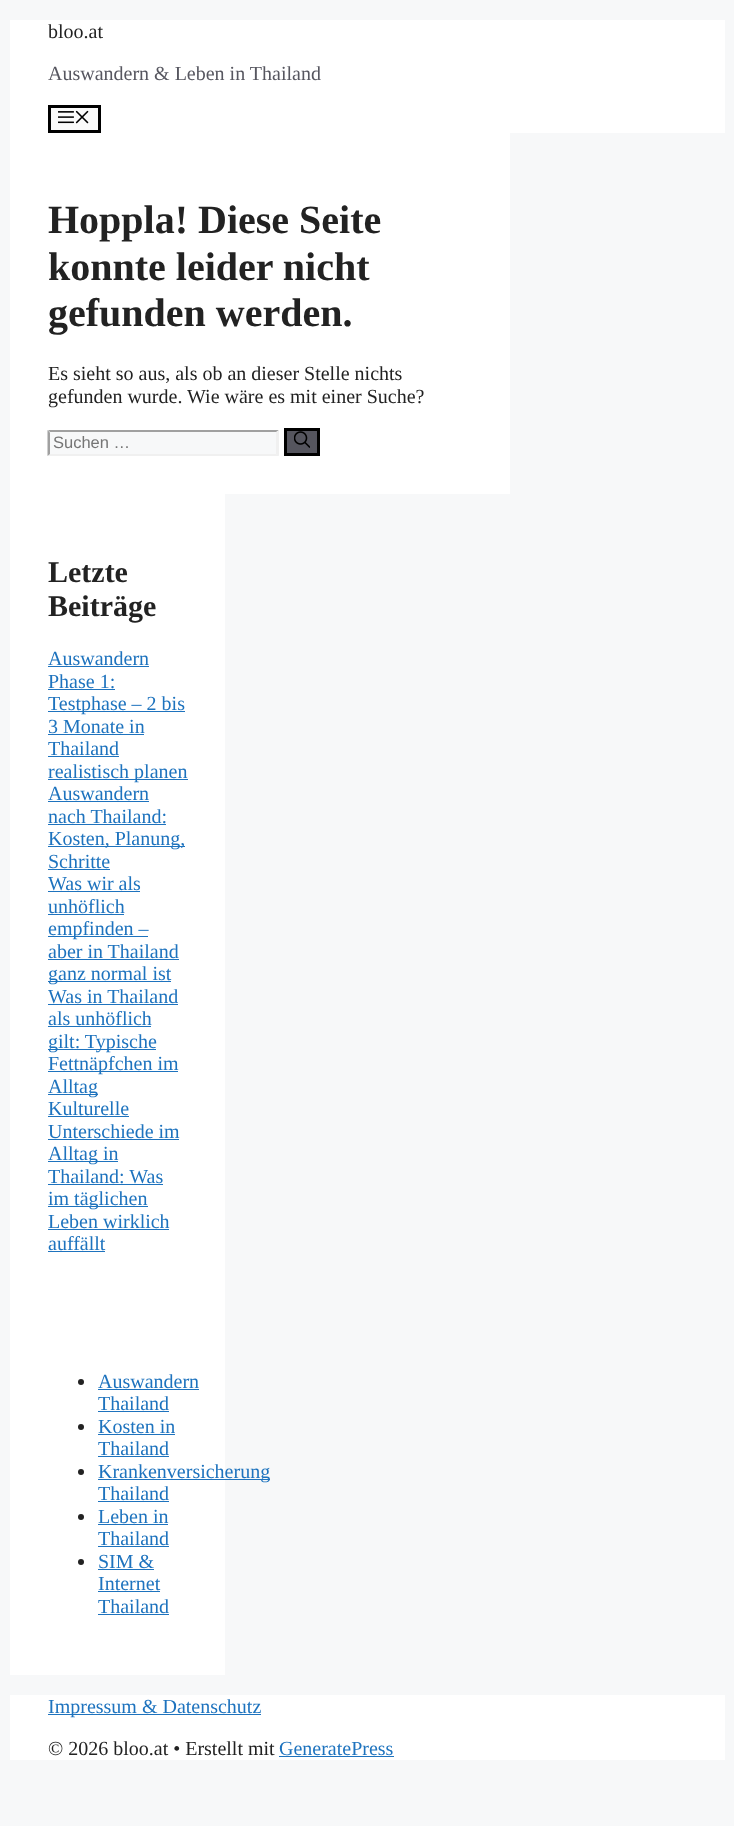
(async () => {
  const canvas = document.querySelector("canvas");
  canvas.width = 734;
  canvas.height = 1826;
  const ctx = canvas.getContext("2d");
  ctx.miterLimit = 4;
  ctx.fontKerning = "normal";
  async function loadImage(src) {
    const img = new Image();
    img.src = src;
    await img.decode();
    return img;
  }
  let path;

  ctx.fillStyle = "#f7f8f9";
  ctx.fillRect(0, 0, 734, 1826);
  ctx.fillStyle = "#ffffff";
  ctx.fillRect(10, 20, 715, 113);
  ctx.fillStyle = "#fafafa";
  ctx.beginPath();
  ctx.rect(49.5, 106.5, 50, 25);
  ctx.fill();
  ctx.strokeStyle = "#000000";
  ctx.lineWidth = 3;
  ctx.stroke();
  ctx.drawImage(await loadImage("img/1.png"), 58, 111, 16, 13);
  ctx.drawImage(await loadImage("img/2.png"), 75, 110, 14, 14);
  ctx.fillStyle = "#ffffff";
  ctx.fillRect(10, 133, 500, 361);
  ctx.fillStyle = "#f7f8f9";
  ctx.fillRect(48, 430, 231, 26);
  ctx.fillStyle = "#a0a0a0";
  path = new Path2D("M48 430H279L276 432H50Z");
  ctx.fill(path);
  ctx.fillStyle = "#f0f0f0";
  path = new Path2D("M279 430V456L276 454V432.5Z");
  ctx.fill(path);
  path = new Path2D("M279 456H48L50 454H276Z");
  ctx.fill(path);
  ctx.fillStyle = "#a0a0a0";
  path = new Path2D("M47.5 456V430L50 432.5V454Z");
  ctx.fill(path);
  ctx.fillStyle = "#55555e";
  ctx.beginPath();
  ctx.rect(285.5, 429.5, 33, 25);
  ctx.fill();
  ctx.stroke();
  ctx.drawImage(await loadImage("img/3.png"), 294, 431, 16, 17);
  for (const [x, y, w, h, color] of [
    [10, 494, 215, 1181, "#ffffff"],
    [48, 666, 101, 1, "#1e73be"],
    [48, 689, 67, 1, "#1e73be"],
    [48, 711, 137, 1, "#1e73be"],
    [48, 734, 96, 1, "#1e73be"],
    [48, 756, 71, 1, "#1e73be"],
    [48, 779, 140, 1, "#1e73be"],
    [48, 801, 101, 1, "#1e73be"],
    [48, 824, 118, 1, "#1e73be"],
    [48, 846, 137, 1, "#1e73be"],
    [48, 869, 62, 1, "#1e73be"],
    [48, 891, 92, 1, "#1e73be"],
    [48, 914, 76, 1, "#1e73be"],
    [48, 936, 100, 1, "#1e73be"],
    [48, 959, 131, 1, "#1e73be"],
    [48, 981, 123, 1, "#1e73be"],
    [48, 1004, 130, 1, "#1e73be"],
    [48, 1026, 103, 1, "#1e73be"],
    [48, 1049, 108, 1, "#1e73be"],
    [48, 1071, 130, 1, "#1e73be"],
    [48, 1094, 50, 1, "#1e73be"],
    [48, 1116, 81, 1, "#1e73be"],
    [48, 1139, 131, 1, "#1e73be"],
    [48, 1161, 70, 1, "#1e73be"],
    [48, 1184, 115, 1, "#1e73be"],
    [48, 1206, 100, 1, "#1e73be"],
    [48, 1229, 121, 1, "#1e73be"],
    [48, 1251, 57, 1, "#1e73be"],
  ]) {
    ctx.fillStyle = color;
    ctx.fillRect(x, y, w, h);
  }
  ctx.fillStyle = "#222222";
  ctx.beginPath();
  ctx.arc(81, 1382, 3, 0, Math.PI * 2);
  ctx.fill();
  ctx.fillStyle = "#1e73be";
  ctx.fillRect(98, 1389, 101, 1);
  ctx.fillRect(98, 1411, 71, 1);
  ctx.fillStyle = "#222222";
  ctx.beginPath();
  ctx.arc(81, 1427, 3, 0, Math.PI * 2);
  ctx.fill();
  ctx.fillStyle = "#1e73be";
  ctx.fillRect(98, 1434, 77, 1);
  ctx.fillRect(98, 1456, 71, 1);
  ctx.fillStyle = "#222222";
  ctx.beginPath();
  ctx.arc(81, 1472, 3, 0, Math.PI * 2);
  ctx.fill();
  ctx.fillStyle = "#1e73be";
  ctx.fillRect(98, 1479, 172, 1);
  ctx.fillRect(98, 1501, 71, 1);
  ctx.fillStyle = "#222222";
  ctx.beginPath();
  ctx.arc(81, 1517, 3, 0, Math.PI * 2);
  ctx.fill();
  ctx.fillStyle = "#1e73be";
  ctx.fillRect(98, 1524, 70, 1);
  ctx.fillRect(98, 1546, 71, 1);
  ctx.fillStyle = "#222222";
  ctx.beginPath();
  ctx.arc(81, 1562, 3, 0, Math.PI * 2);
  ctx.fill();
  for (const [x, y, w, h, color] of [
    [98, 1569, 56, 1, "#1e73be"],
    [98, 1591, 62, 1, "#1e73be"],
    [98, 1614, 71, 1, "#1e73be"],
    [10, 1695, 715, 65, "#ffffff"],
    [48, 1714, 213, 1, "#1e73be"],
    [279, 1756, 115, 1, "#1e73be"],
  ]) {
    ctx.fillStyle = color;
    ctx.fillRect(x, y, w, h);
  }
  ctx.font = "20px Liberation Serif";
  ctx.fillStyle = "#222222";
  ctx.fillText("bloo.at", 48, 38);
  ctx.fillStyle = "#575760";
  ctx.fillText("Auswandern & Leben in Thailand", 48, 80);
  ctx.font = "bold 40px Liberation Serif";
  ctx.fillStyle = "#222222";
  for (const [text, x, y] of [
    ["Hoppla! Diese Seite", 48, 233],
    ["konnte leider nicht", 48, 280],
    ["gefunden werden.", 48, 326],
  ]) {
    ctx.fillText(text, x, y);
  }
  ctx.font = "20px Liberation Serif";
  ctx.fillText("Es sieht so aus, als ob an dieser Stelle nichts", 48, 380);
  ctx.fillText("gefunden wurde. Wie wäre es mit einer Suche?", 48, 403);
  ctx.font = "16.5px Liberation Sans";
  ctx.fillStyle = "#757575";
  ctx.fillText("Suchen …", 53, 448);
  ctx.font = "bold 30px Liberation Serif";
  ctx.fillStyle = "#222222";
  ctx.fillText("Letzte", 48, 582);
  ctx.fillText("Beiträge", 48, 616);
  ctx.font = "20px Liberation Serif";
  ctx.fillStyle = "#1e73be";
  for (const [text, x, y] of [
    ["Auswandern", 48, 665],
    ["Phase 1:", 48, 688],
    ["Testphase – 2 bis", 48, 710],
    ["3 Monate in", 48, 733],
    ["Thailand", 48, 755],
    ["realistisch planen", 48, 778],
    ["Auswandern", 48, 800],
    ["nach Thailand:", 48, 823],
    ["Kosten, Planung,", 48, 845],
    ["Schritte", 48, 868],
    ["Was wir als", 48, 890],
    ["unhöflich", 48, 913],
    ["empfinden –", 48, 935],
    ["aber in Thailand", 48, 958],
    ["ganz normal ist", 48, 980],
    ["Was in Thailand", 48, 1003],
    ["als unhöflich", 48, 1025],
    ["gilt: Typische", 48, 1048],
    ["Fettnäpfchen im", 48, 1070],
    ["Alltag", 48, 1093],
    ["Kulturelle", 48, 1115],
    ["Unterschiede im", 48, 1138],
    ["Alltag in", 48, 1160],
    ["Thailand: Was", 48, 1183],
    ["im täglichen", 48, 1205],
    ["Leben wirklich", 48, 1228],
    ["auffällt", 48, 1250],
    ["Auswandern", 98, 1388],
    ["Thailand", 98, 1410],
    ["Kosten in", 98, 1433],
    ["Thailand", 98, 1455],
    ["Krankenversicherung", 98, 1478],
    ["Thailand", 98, 1500],
    ["Leben in", 98, 1523],
    ["Thailand", 98, 1545],
    ["SIM &", 98, 1568],
    ["Internet", 98, 1590],
    ["Thailand", 98, 1613],
    ["Impressum & Datenschutz", 48, 1713],
  ]) {
    ctx.fillText(text, x, y);
  }
  ctx.fillStyle = "#222222";
  ctx.fillText("© 2026 bloo.at • Erstellt mit", 48, 1755);
  ctx.fillStyle = "#1e73be";
  ctx.fillText("GeneratePress", 279, 1755);
})();
